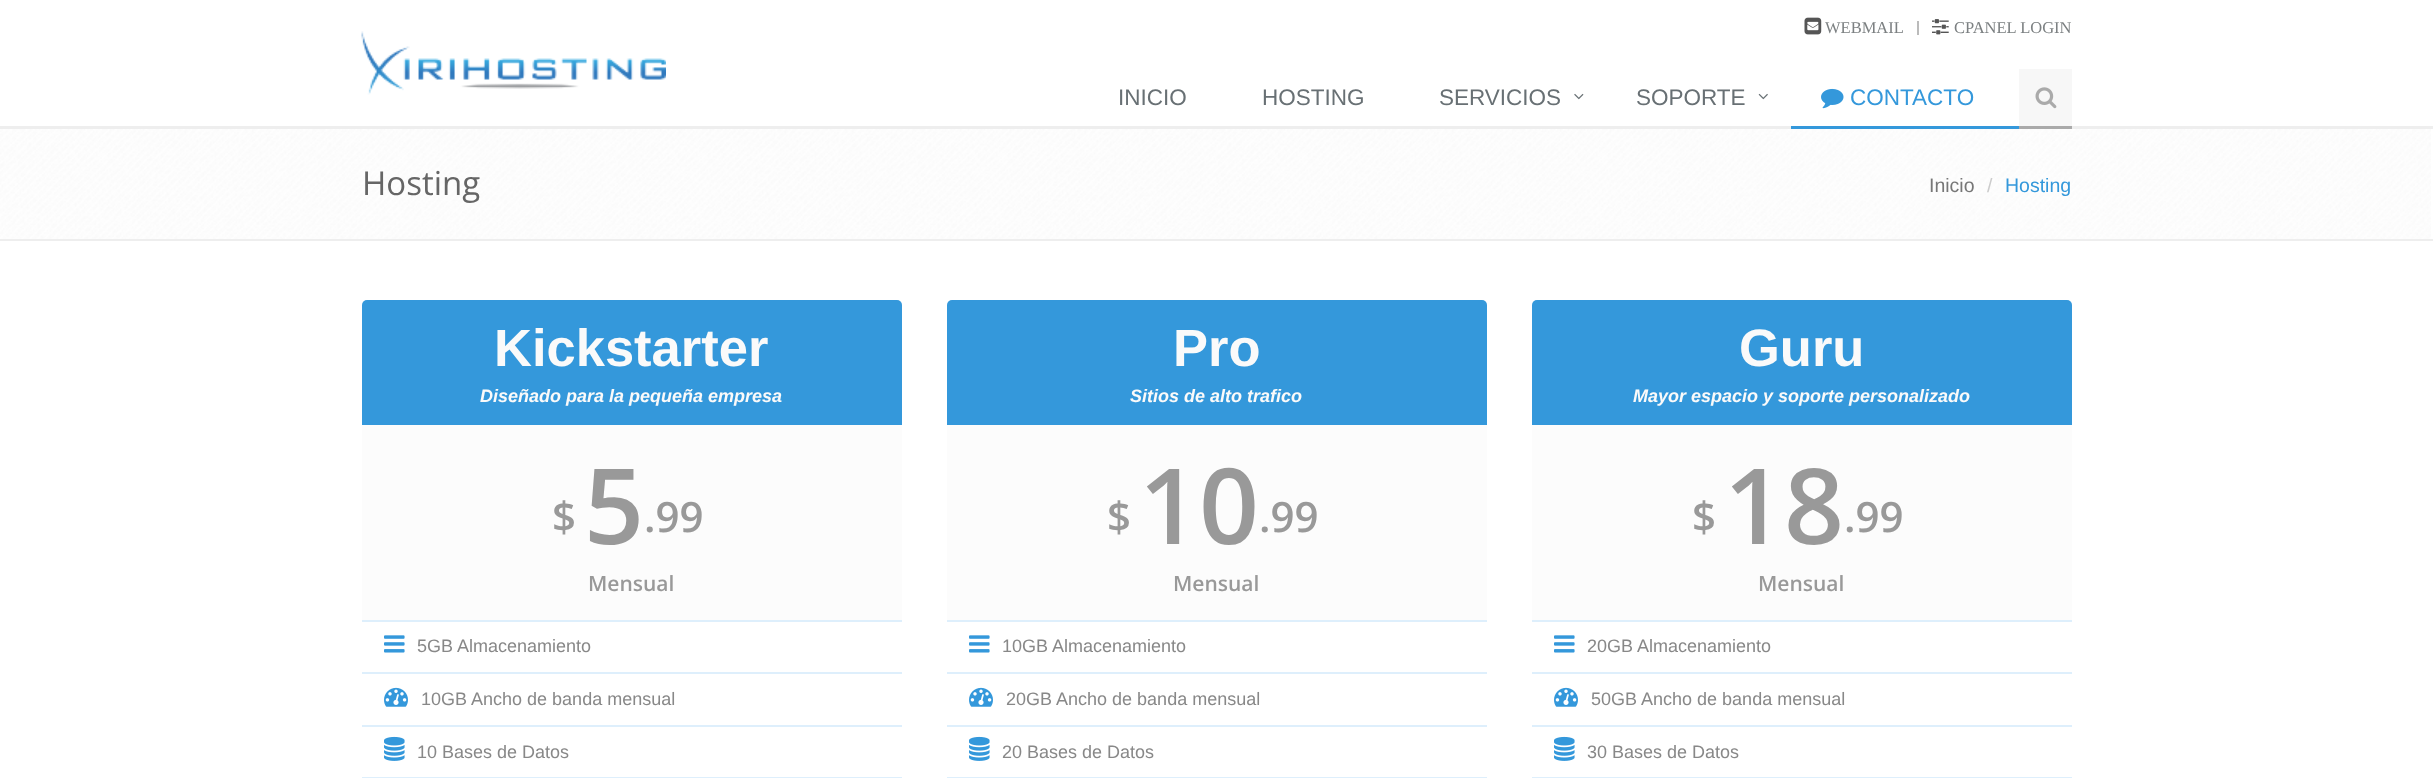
(async () => {
  const canvas = document.querySelector("canvas");
  canvas.width = 2433;
  canvas.height = 778;
  const ctx = canvas.getContext("2d");
  ctx.miterLimit = 4;
  ctx.fontKerning = "normal";
  async function loadImage(src) {
    const img = new Image();
    img.src = src;
    await img.decode();
    return img;
  }

  ctx.fillStyle = "#ffffff";
  ctx.fillRect(0, 0, 2433, 778);
  ctx.fillStyle = "#eeeeee";
  ctx.fillRect(0, 126, 2433, 3);
  ctx.drawImage(await loadImage("img/1.png"), 1804, 17, 18, 18);
  ctx.fillStyle = "#bbbbbb";
  ctx.fillRect(1917, 21, 2, 14);
  ctx.drawImage(await loadImage("img/2.png"), 1932, 19, 17, 16);
  ctx.drawImage(await loadImage("img/3.png"), 361, 31, 305, 64);
  ctx.drawImage(await loadImage("img/4.png"), 1574, 93, 10, 7);
  ctx.drawImage(await loadImage("img/5.png"), 1758, 93, 10, 7);
  ctx.fillStyle = "#3498db";
  ctx.fillRect(1791, 126, 228, 3);
  ctx.drawImage(await loadImage("img/6.png"), 1821, 88, 23, 21);
  ctx.fillStyle = "#f7f7f7";
  ctx.fillRect(2019, 69, 53, 57);
  ctx.fillStyle = "#aaaaaa";
  ctx.fillRect(2019, 126, 53, 3);
  ctx.drawImage(await loadImage("img/7.png"), 2035, 87, 22, 22);
  ctx.drawImage(await loadImage("img/8.png"), 0, 129, 2431, 110);
  ctx.fillStyle = "#eeeeee";
  ctx.fillRect(0, 239, 2433, 2);
  ctx.fillStyle = "#3498db";
  ctx.beginPath();
  ctx.roundRect(362, 300, 540, 125, [5, 5, 0, 0]);
  ctx.fill();
  for (const [x, y, w, h, color] of [
    [362, 425, 540, 195, "#fcfcfc"],
    [362, 620, 540, 2, "#deeffc"],
    [362, 672, 540, 2, "#deeffc"],
  ]) {
    ctx.fillStyle = color;
    ctx.fillRect(x, y, w, h);
  }
  ctx.drawImage(await loadImage("img/9.png"), 384, 635, 21, 18);
  ctx.fillRect(362, 725, 540, 2);
  ctx.drawImage(await loadImage("img/10.png"), 384, 687, 24, 20);
  ctx.fillRect(362, 777, 540, 1);
  ctx.drawImage(await loadImage("img/11.png"), 384, 736, 21, 25);
  ctx.fillStyle = "#3498db";
  ctx.beginPath();
  ctx.roundRect(947, 300, 540, 125, [5, 5, 0, 0]);
  ctx.fill();
  for (const [x, y, w, h, color] of [
    [947, 425, 540, 195, "#fcfcfc"],
    [947, 620, 540, 2, "#deeffc"],
    [947, 672, 540, 2, "#deeffc"],
  ]) {
    ctx.fillStyle = color;
    ctx.fillRect(x, y, w, h);
  }
  ctx.drawImage(await loadImage("img/9.png"), 969, 635, 21, 18);
  ctx.fillRect(947, 725, 540, 2);
  ctx.drawImage(await loadImage("img/10.png"), 969, 687, 24, 20);
  ctx.fillRect(947, 777, 540, 1);
  ctx.drawImage(await loadImage("img/11.png"), 969, 736, 21, 25);
  ctx.fillStyle = "#3498db";
  ctx.beginPath();
  ctx.roundRect(1532, 300, 540, 125, [5, 5, 0, 0]);
  ctx.fill();
  for (const [x, y, w, h, color] of [
    [1532, 425, 540, 195, "#fcfcfc"],
    [1532, 620, 540, 2, "#deeffc"],
    [1532, 672, 540, 2, "#deeffc"],
  ]) {
    ctx.fillStyle = color;
    ctx.fillRect(x, y, w, h);
  }
  ctx.drawImage(await loadImage("img/9.png"), 1554, 635, 21, 18);
  ctx.fillRect(1532, 725, 540, 2);
  ctx.drawImage(await loadImage("img/10.png"), 1554, 687, 24, 20);
  ctx.fillRect(1532, 777, 540, 1);
  ctx.drawImage(await loadImage("img/11.png"), 1554, 736, 21, 25);
  ctx.font = "16.5px Liberation Serif";
  ctx.fillStyle = "#7c8082";
  ctx.fillText("WEBMAIL", 1825, 33);
  ctx.fillText("CPANEL LOGIN", 1954, 33);
  ctx.font = "22.5px Liberation Sans";
  ctx.fillStyle = "#687074";
  for (const [text, x, y] of [
    ["INICIO", 1118, 105],
    ["HOSTING", 1262, 105],
    ["SERVICIOS", 1439, 105],
    ["SOPORTE", 1636, 105],
  ]) {
    ctx.fillText(text, x, y);
  }
  ctx.fillStyle = "#3498db";
  ctx.fillText("CONTACTO", 1850, 105);
  ctx.font = "33px Open Sans";
  ctx.fillStyle = "#666666";
  ctx.fillText("Hosting", 362, 195);
  ctx.font = "19.5px Liberation Sans";
  ctx.fillStyle = "#777777";
  ctx.fillText("Inicio", 1929, 192);
  ctx.fillStyle = "#cccccc";
  ctx.fillText("/", 1987, 192);
  ctx.fillStyle = "#3498db";
  ctx.fillText("Hosting", 2005, 192);
  ctx.font = "bold 52.5px Liberation Sans";
  ctx.fillStyle = "#fafafa";
  ctx.fillText("Kickstarter", 494, 366);
  ctx.font = "italic bold 18px Liberation Sans";
  ctx.fillText("Diseñado para la pequeña empresa", 480, 402);
  ctx.font = "600 42px Open Sans";
  ctx.fillStyle = "#999999";
  ctx.fillText("$", 552, 532);
  ctx.font = "600 105px Open Sans";
  ctx.fillText("5", 584, 544);
  ctx.font = "600 42px Open Sans";
  ctx.fillText(".99", 644, 532);
  ctx.font = "600 21px Open Sans";
  ctx.fillText("Mensual", 588, 591);
  ctx.font = "18px Liberation Sans";
  ctx.fillStyle = "#888888";
  for (const [text, x, y] of [
    ["5GB Almacenamiento", 417, 652],
    ["10GB Ancho de banda mensual", 421, 705],
    ["10 Bases de Datos", 417, 758],
  ]) {
    ctx.fillText(text, x, y);
  }
  ctx.font = "bold 52.5px Liberation Sans";
  ctx.fillStyle = "#fafafa";
  ctx.fillText("Pro", 1173, 366);
  ctx.font = "italic bold 18px Liberation Sans";
  ctx.fillText("Sitios de alto trafico", 1130, 402);
  ctx.font = "600 42px Open Sans";
  ctx.fillStyle = "#999999";
  ctx.fillText("$", 1107, 532);
  ctx.font = "600 105px Open Sans";
  ctx.fillText("10", 1139, 544);
  ctx.font = "600 42px Open Sans";
  ctx.fillText(".99", 1259, 532);
  ctx.font = "600 21px Open Sans";
  ctx.fillText("Mensual", 1173, 591);
  ctx.font = "18px Liberation Sans";
  ctx.fillStyle = "#888888";
  for (const [text, x, y] of [
    ["10GB Almacenamiento", 1002, 652],
    ["20GB Ancho de banda mensual", 1006, 705],
    ["20 Bases de Datos", 1002, 758],
  ]) {
    ctx.fillText(text, x, y);
  }
  ctx.font = "bold 52.5px Liberation Sans";
  ctx.fillStyle = "#fafafa";
  ctx.fillText("Guru", 1739, 366);
  ctx.font = "italic bold 18px Liberation Sans";
  ctx.fillText("Mayor espacio y soporte personalizado", 1633, 402);
  ctx.font = "600 42px Open Sans";
  ctx.fillStyle = "#999999";
  ctx.fillText("$", 1692, 532);
  ctx.font = "600 105px Open Sans";
  ctx.fillText("18", 1724, 544);
  ctx.font = "600 42px Open Sans";
  ctx.fillText(".99", 1844, 532);
  ctx.font = "600 21px Open Sans";
  ctx.fillText("Mensual", 1758, 591);
  ctx.font = "18px Liberation Sans";
  ctx.fillStyle = "#888888";
  for (const [text, x, y] of [
    ["20GB Almacenamiento", 1587, 652],
    ["50GB Ancho de banda mensual", 1591, 705],
    ["30 Bases de Datos", 1587, 758],
  ]) {
    ctx.fillText(text, x, y);
  }
})();
